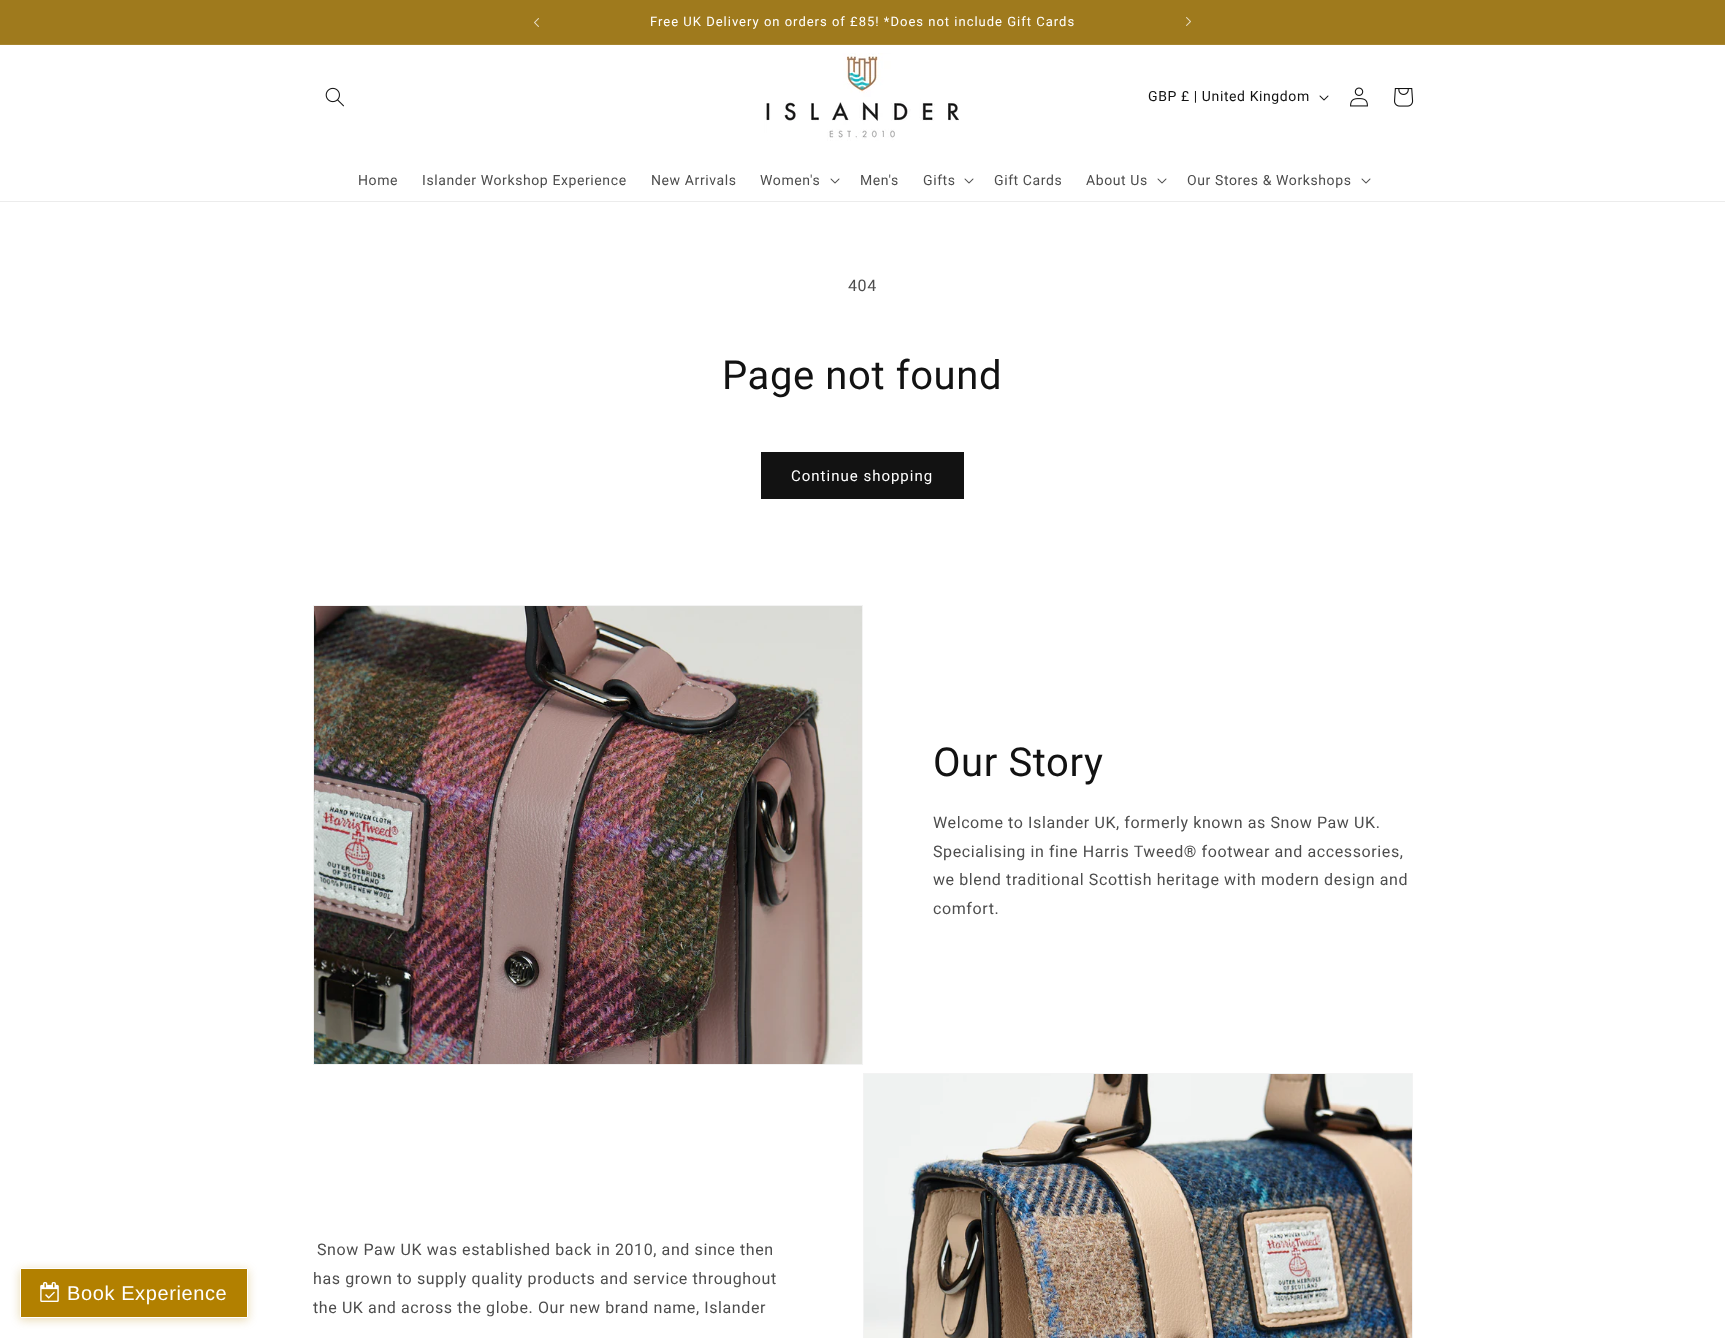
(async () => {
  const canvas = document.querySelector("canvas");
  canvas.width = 1725;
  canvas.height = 1338;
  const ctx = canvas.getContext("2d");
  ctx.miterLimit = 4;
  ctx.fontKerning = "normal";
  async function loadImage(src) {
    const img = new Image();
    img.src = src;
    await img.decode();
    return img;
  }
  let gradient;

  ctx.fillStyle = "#ffffff";
  ctx.fillRect(0, 0, 1725, 1338);
  gradient = ctx.createLinearGradient(913, 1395, 812, -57);
  gradient.addColorStop(0, "#8aedfc");
  gradient.addColorStop(0.52, "#9f7a1d");
  ctx.fillStyle = gradient;
  ctx.fillRect(0, 0, 1725, 44);
  ctx.fillStyle = "#a7852f";
  ctx.fillRect(0, 44, 1725, 1);
  ctx.drawImage(await loadImage("img/1.png"), 534, 18, 5, 9);
  ctx.drawImage(await loadImage("img/2.png"), 1186, 17, 5, 9);
  ctx.fillStyle = "#ececec";
  ctx.fillRect(0, 201, 1725, 1);
  ctx.drawImage(await loadImage("img/3.png"), 325, 87, 19, 20);
  ctx.drawImage(await loadImage("img/4.png"), 764, 53, 195, 88);
  ctx.drawImage(await loadImage("img/5.png"), 1319, 95, 10, 6);
  ctx.drawImage(await loadImage("img/6.png"), 1350, 87, 18, 20);
  ctx.drawImage(await loadImage("img/7.png"), 1394, 88, 20, 19);
  ctx.drawImage(await loadImage("img/8.png"), 830, 178, 10, 6);
  ctx.drawImage(await loadImage("img/8.png"), 964, 178, 10, 6);
  ctx.drawImage(await loadImage("img/8.png"), 1157, 178, 10, 6);
  ctx.drawImage(await loadImage("img/8.png"), 1361, 178, 10, 6);
  ctx.fillStyle = "rgba(178, 128, 0, 0.3)";
  ctx.filter = "blur(5px)";
  ctx.beginPath();
  ctx.rect(20, 1270, 228, 50);
  ctx.fill();
  ctx.filter = "none";
  ctx.fillStyle = "#b28000";
  ctx.beginPath();
  ctx.rect(20.5, 1268.5, 227, 49);
  ctx.fill();
  ctx.strokeStyle = "#ffffff";
  ctx.stroke();
  ctx.drawImage(await loadImage("img/9.png"), 40, 1282, 19, 20);
  ctx.fillStyle = "#121212";
  ctx.fillRect(761, 452, 203, 47);
  ctx.strokeStyle = "#f3f3f3";
  ctx.strokeRect(313.5, 605.5, 549, 459);
  ctx.drawImage(await loadImage("img/10.png"), 314, 606, 548, 458);
  ctx.strokeRect(863.5, 1073.5, 549, 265);
  ctx.drawImage(await loadImage("img/11.png"), 864, 1074, 548, 264);
  ctx.letterSpacing = "1px";
  ctx.font = "13px Roboto";
  ctx.fillStyle = "#ffffff";
  ctx.fillText("Free UK Delivery on orders of £85! *Does not include Gift Cards", 650, 26);
  ctx.letterSpacing = "0.6px";
  ctx.font = "14px Roboto";
  ctx.fillStyle = "#121212";
  ctx.fillText("GBP £ | United Kingdom", 1148, 101);
  ctx.fillStyle = "#4d4d4d";
  for (const [text, x, y] of [
    ["Home", 358, 185],
    ["Islander Workshop Experience", 422, 185],
    ["New Arrivals", 651, 185],
    ["Women's", 760, 185],
    ["Men's", 860, 185],
    ["Gifts", 923, 185],
    ["Gift Cards", 994, 185],
    ["About Us", 1086, 185],
    ["Our Stores & Workshops", 1187, 185],
  ]) {
    ctx.fillText(text, x, y);
  }
  ctx.font = "20px Liberation Sans";
  ctx.fillStyle = "#ffffff";
  ctx.fillText("Book Experience", 67, 1300);
  ctx.font = "16px Roboto";
  ctx.fillStyle = "#4d4d4d";
  ctx.fillText("404", 848, 291);
  ctx.font = "40px Roboto";
  ctx.fillStyle = "#121212";
  ctx.fillText("Page not found", 722, 389);
  ctx.letterSpacing = "1px";
  ctx.font = "15px Roboto";
  ctx.fillStyle = "#ffffff";
  ctx.fillText("Continue shopping", 791, 481);
  ctx.letterSpacing = "0.6px";
  ctx.font = "40px Roboto";
  ctx.fillStyle = "#121212";
  ctx.fillText("Our Story", 933, 776);
  ctx.font = "16px Roboto";
  ctx.fillStyle = "#4d4d4d";
  for (const [text, x, y] of [
    ["Welcome to Islander UK, formerly known as Snow Paw UK.", 933, 828],
    ["Specialising in fine Harris Tweed® footwear and accessories,", 933, 857],
    ["we blend traditional Scottish heritage with modern design and", 933, 885],
    ["comfort.", 933, 914],
    ["Snow Paw UK was established back in 2010, and since then", 317, 1255],
    ["has grown to supply quality products and service throughout", 313, 1284],
    ["the UK and across the globe. Our new brand name, Islander", 313, 1313],
  ]) {
    ctx.fillText(text, x, y);
  }
})();
